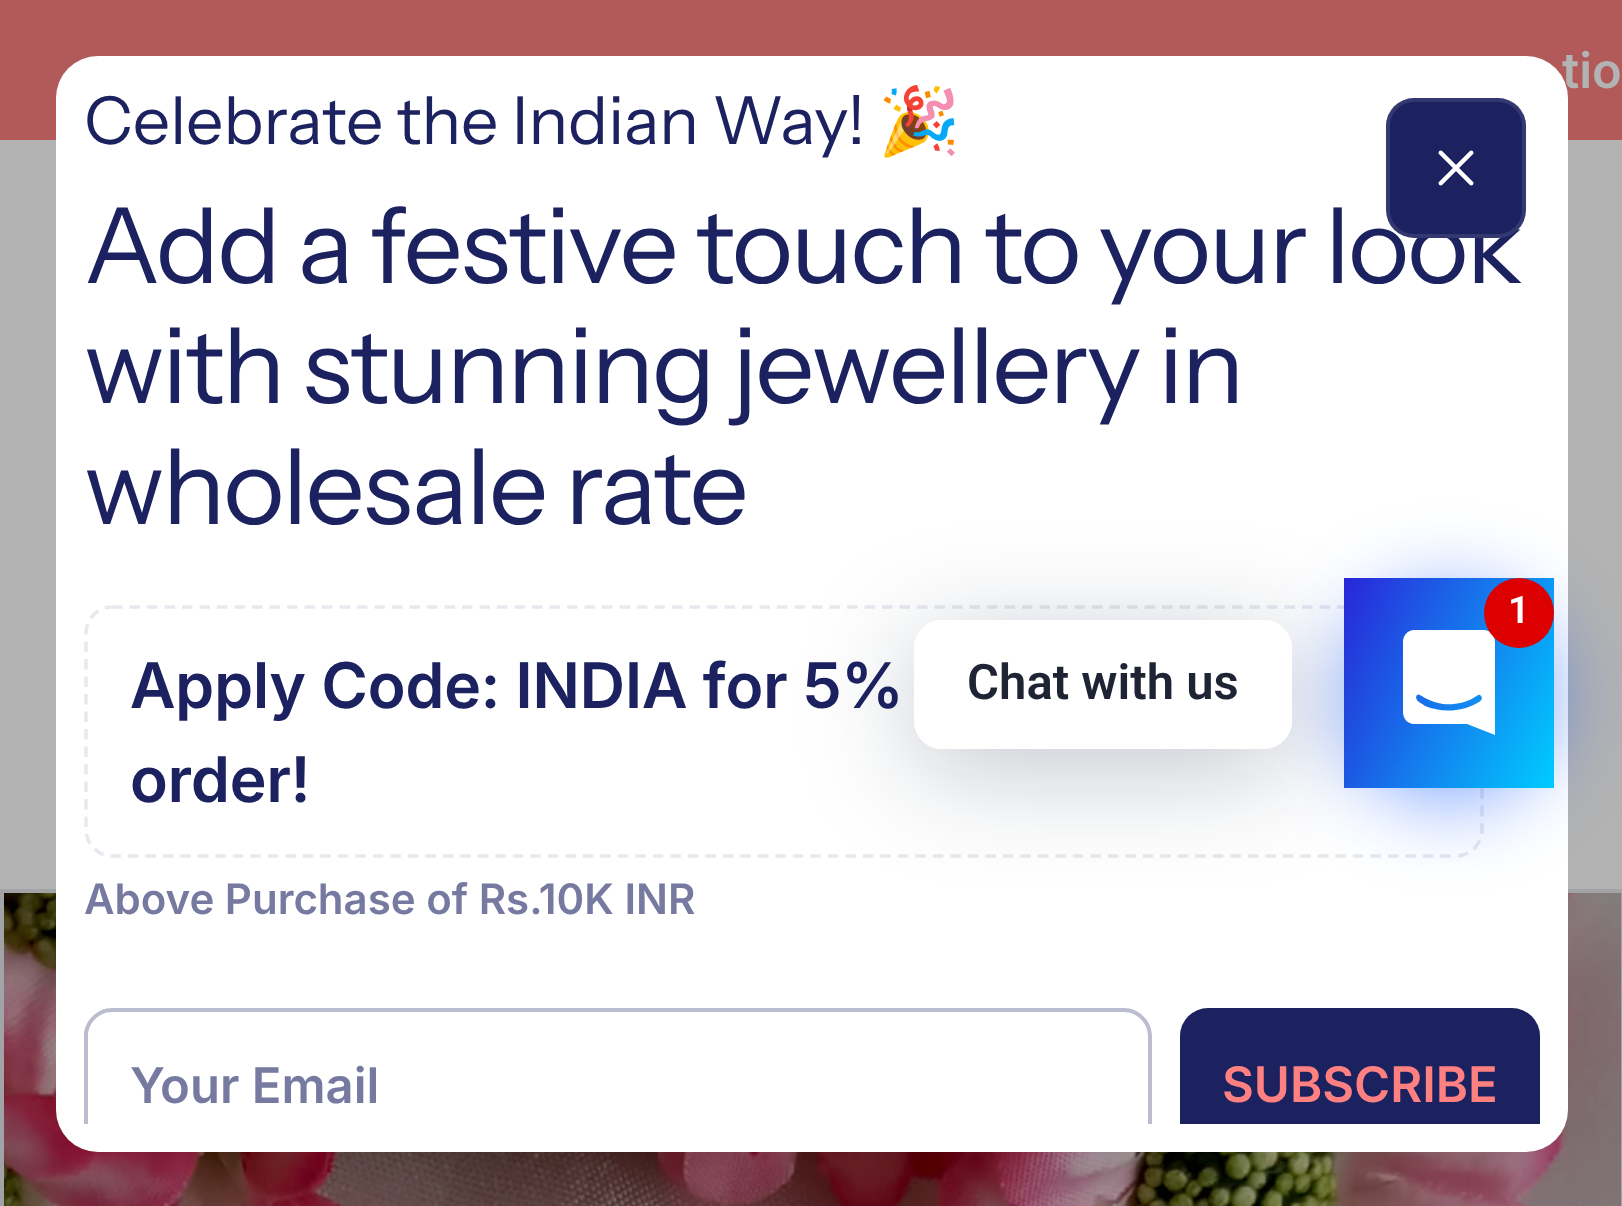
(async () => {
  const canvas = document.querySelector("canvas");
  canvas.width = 1622;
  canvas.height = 1206;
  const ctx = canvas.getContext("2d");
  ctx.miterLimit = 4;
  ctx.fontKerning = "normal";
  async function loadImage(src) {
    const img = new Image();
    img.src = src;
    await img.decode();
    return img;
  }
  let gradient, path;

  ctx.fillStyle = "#b3b3b3";
  ctx.fillRect(0, 0, 1622, 1206);
  ctx.fillStyle = "#b25a5a";
  ctx.fillRect(0, 0, 1622, 140);
  ctx.strokeStyle = "#a2a3a7";
  ctx.lineWidth = 4;
  ctx.strokeRect(2, 891, 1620, 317);
  ctx.drawImage(await loadImage("img/2.png"), 4, 893, 1617, 313);
  ctx.font = "600 49px Inter";
  ctx.fillStyle = "#b3b3b3";
  ctx.fillText("tio", 1562, 88);
  ctx.fillStyle = "#ffffff";
  ctx.beginPath();
  ctx.roundRect(56, 56, 1512, 1096, 42);
  ctx.fill();
  ctx.font = "66.2px Instrument Sans";
  ctx.fillStyle = "#1c2260";
  ctx.fillText("Celebrate the Indian Way!", 84, 144);
  ctx.font = "66.2px Noto Color Emoji";
  ctx.fillText("🎉", 878, 144);
  ctx.letterSpacing = "-2.1px";
  ctx.font = "105px Instrument Sans";
  for (const [text, x, y] of [
    ["Add a festive touch to your look", 84, 283],
    ["with stunning jewellery in", 84, 403],
    ["wholesale rate", 84, 524],
  ]) {
    ctx.fillText(text, x, y);
  }
  path = new Path2D("M112 607H1456C1470.5 607 1482 619 1482 633.5V829.5C1482 844 1470.5 856 1456 856H112C97.5 856 86 844 86 829.5V633.5C86 619 97.5 607 112 607Z");
  ctx.strokeStyle = "#e8e9ef";
  ctx.lineWidth = 3.5;
  ctx.setLineDash([10.5, 7]);
  ctx.stroke(path);
  ctx.letterSpacing = "0px";
  ctx.font = "600 63px 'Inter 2'";
  ctx.fillText("Apply Code: INDIA for 5%", 130, 708);
  ctx.fillText("order!", 130, 802);
  ctx.font = "600 42px Inter";
  ctx.fillStyle = "#777aa0";
  ctx.fillText("Above Purchase of Rs.10K INR", 84, 914);
  ctx.save();
  ctx.beginPath();
  ctx.rect(84, 84, 1456, 1040);
  ctx.clip();
  ctx.fillStyle = "#bbbdcf";
  path = new Path2D("M112 1008C97 1008 84 1021 84 1036V1134C84 1140 86 1146 90 1151L96 1152C91 1148 88 1141 88 1134V1036C88 1023 99 1012 112 1012H1124C1137 1012 1148 1023 1148 1036V1134C1148 1141 1145 1148 1140 1152H1145C1150 1147 1152 1141 1152 1134V1036C1152 1021 1139 1008 1124 1008Z");
  ctx.fill(path);
  ctx.restore();
  ctx.font = "600 49px Inter";
  ctx.fillText("Your Email", 130, 1103);
  ctx.fillStyle = "#1c2260";
  ctx.beginPath();
  ctx.roundRect(1180, 1008, 360, 116, [28, 28, 0, 0]);
  ctx.fill();
  ctx.fillStyle = "#fe8080";
  ctx.fillText("SUBSCRIBE", 1222, 1102);
  ctx.fillStyle = "#1c2260";
  ctx.beginPath();
  ctx.roundRect(1386, 98, 140, 140, 28);
  ctx.fill();
  ctx.beginPath();
  ctx.roundRect(1388, 100, 136, 136, 26);
  ctx.strokeStyle = "rgba(255, 255, 255, 0.1)";
  ctx.lineWidth = 4;
  ctx.setLineDash([]);
  ctx.stroke();
  ctx.drawImage(await loadImage("img/1.png"), 1438, 150, 36, 36);
  ctx.fillStyle = "rgba(0, 77, 255, 0.5)";
  ctx.filter = "blur(42px)";
  ctx.beginPath();
  ctx.roundRect(1344, 592, 210, 210, 105);
  ctx.fill();
  ctx.filter = "none";
  gradient = ctx.createLinearGradient(1323, 624, 1575, 741);
  gradient.addColorStop(0, "#2a27da");
  gradient.addColorStop(1, "#00ccff");
  ctx.fillStyle = gradient;
  ctx.fillRect(1344, 578, 210, 210);
  ctx.save();
  path = new Path2D("M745 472H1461V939H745ZM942 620H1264C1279.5 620 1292 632.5 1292 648V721C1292 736.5 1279.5 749 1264 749H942C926.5 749 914 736.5 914 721V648C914 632.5 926.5 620 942 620Z");
  ctx.clip(path, "evenodd");
  ctx.fillStyle = "rgba(0, 18, 46, 0.24)";
  ctx.filter = "blur(56px)";
  ctx.beginPath();
  ctx.roundRect(914, 641, 378, 129, 28);
  ctx.fill();
  ctx.filter = "none";
  ctx.restore();
  ctx.fillStyle = "#ffffff";
  ctx.beginPath();
  ctx.roundRect(914, 620, 378, 129, 28);
  ctx.fill();
  ctx.font = "600 49px Roboto";
  ctx.fillStyle = "#1e2433";
  ctx.fillText("Chat with us", 967, 699);
  ctx.fillStyle = "#ffffff";
  path = new Path2D("M1495 735L1467 724H1414C1408 724 1403 719 1403 712V642C1403 635 1408 630 1414 630H1484C1490 630 1495 635 1495 642ZM1481 696C1479 693 1477 696 1475 697C1466 703 1454 705 1443 704C1436 703 1431 701 1425 698L1420 695C1417 693 1415 697 1417 700C1418 702 1423 704 1425 706C1442 713 1463 712 1479 702C1481 701 1483 698 1481 696Z");
  ctx.fill(path);
  ctx.fillStyle = "#dd0000";
  ctx.beginPath();
  ctx.arc(1519, 613, 35, 0, Math.PI * 2);
  ctx.fill();
  ctx.font = "600 38px Roboto";
  ctx.fillStyle = "#ffffff";
  ctx.fillText("1", 1508, 623);
})();
